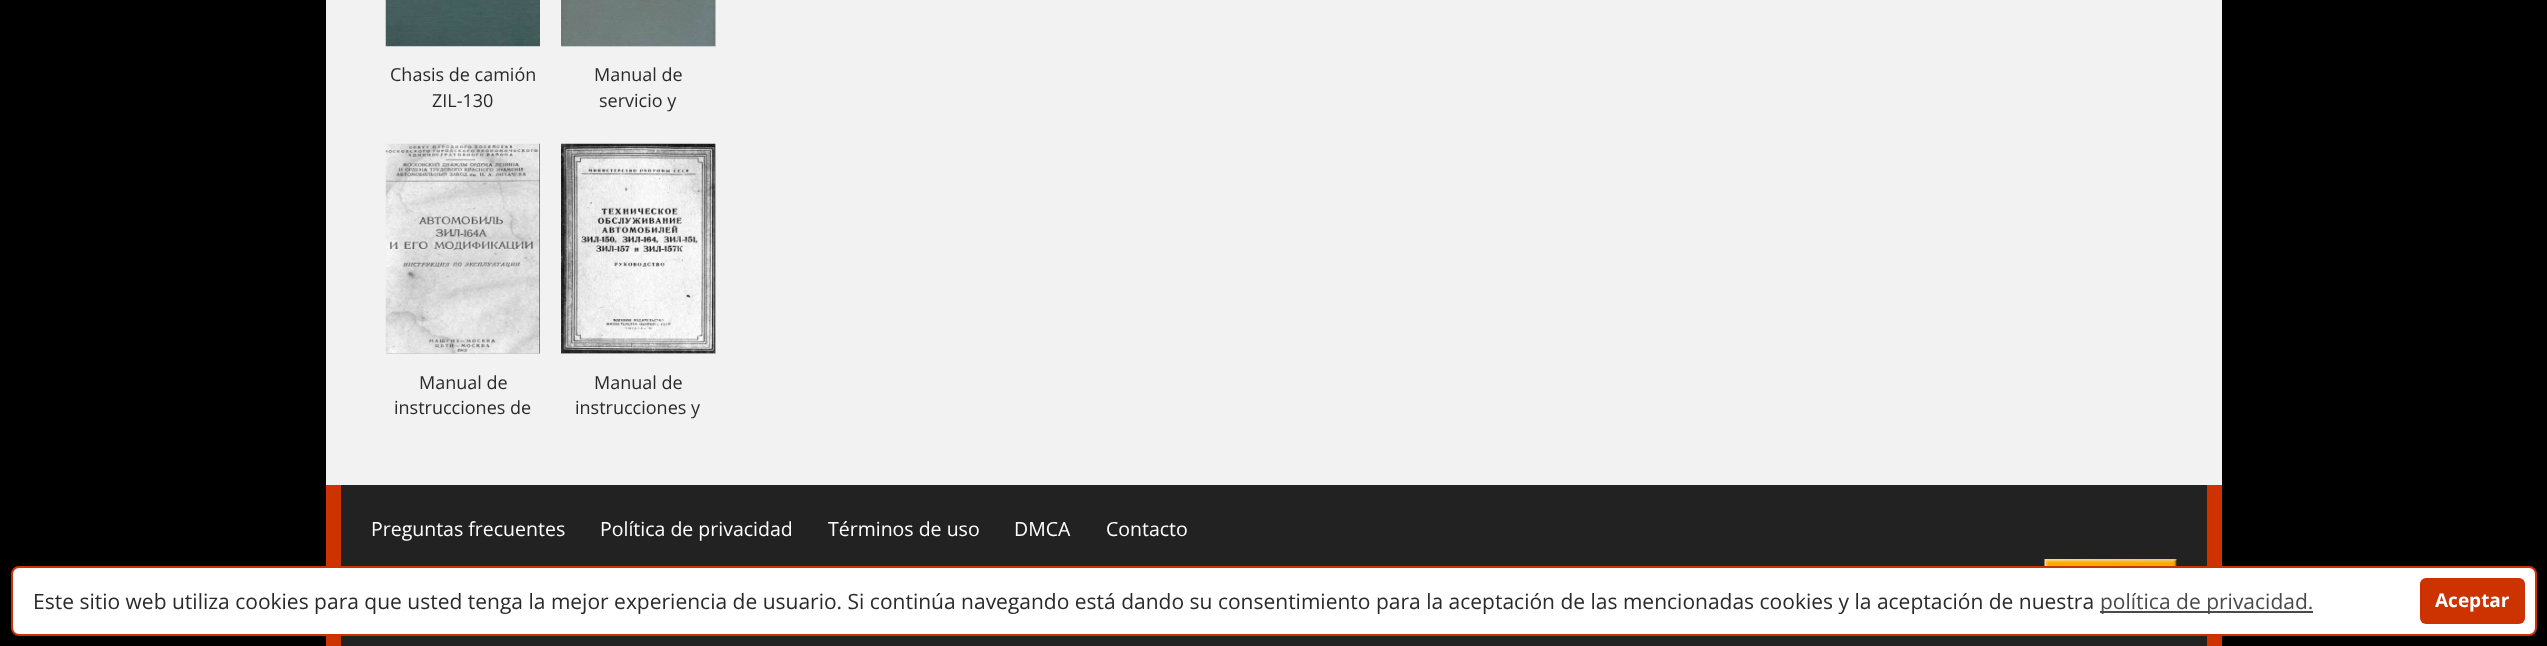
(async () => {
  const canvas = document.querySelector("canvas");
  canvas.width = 2547;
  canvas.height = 646;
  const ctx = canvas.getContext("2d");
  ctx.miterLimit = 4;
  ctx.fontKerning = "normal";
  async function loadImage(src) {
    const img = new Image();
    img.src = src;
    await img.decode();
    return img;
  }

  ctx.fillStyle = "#000000";
  ctx.fillRect(0, 0, 2547, 646);
  ctx.fillStyle = "#f2f2f2";
  ctx.fillRect(326, 0, 1896, 485);
  ctx.fillStyle = "#cccccc";
  ctx.fillRect(386, 46, 154, 1);
  ctx.drawImage(await loadImage("img/1.png"), 385, 0, 155, 46);
  ctx.fillRect(561, 0, 155, 47);
  ctx.drawImage(await loadImage("img/2.png"), 561, 0, 155, 46);
  ctx.fillRect(386, 353, 154, 1);
  ctx.drawImage(await loadImage("img/3.png"), 385, 143, 155, 211);
  ctx.fillRect(561, 144, 155, 210);
  ctx.drawImage(await loadImage("img/4.png"), 561, 143, 155, 211);
  for (const [x, y, w, h, color] of [
    [341, 485, 1866, 161, "#222222"],
    [2207, 485, 15, 161, "#cc3300"],
    [326, 485, 15, 161, "#cc3300"],
    [2176, 560, 1, 6, "#000000"],
  ]) {
    ctx.fillStyle = color;
    ctx.fillRect(x, y, w, h);
  }
  ctx.drawImage(await loadImage("img/5.png"), 2044, 559, 133, 7);
  ctx.fillStyle = "#ffffff";
  ctx.beginPath();
  ctx.roundRect(12, 567, 2524, 68, 7);
  ctx.fill();
  ctx.strokeStyle = "#cc3300";
  ctx.lineWidth = 2;
  ctx.stroke();
  ctx.fillStyle = "#4a4a4a";
  ctx.fillRect(2100, 611, 213, 2);
  ctx.fillStyle = "#cc3300";
  ctx.beginPath();
  ctx.roundRect(2420, 578, 105, 46, 6);
  ctx.fill();
  ctx.font = "18px Open Sans";
  ctx.fillStyle = "#2a2a2a";
  for (const [text, x, y] of [
    ["Chasis de camión", 390, 81],
    ["ZIL-130", 432, 107],
    ["Manual de", 594, 81],
    ["servicio y", 599, 107],
    ["Manual de", 419, 389],
    ["instrucciones de", 394, 414],
    ["Manual de", 594, 389],
    ["instrucciones y", 575, 414],
  ]) {
    ctx.fillText(text, x, y);
  }
  ctx.font = "19.5px Open Sans";
  ctx.fillStyle = "#ffffff";
  for (const [text, x, y] of [
    ["Preguntas frecuentes", 371, 536],
    ["Política de privacidad", 600, 536],
    ["Términos de uso", 828, 536],
    ["DMCA", 1014, 536],
    ["Contacto", 1106, 536],
  ]) {
    ctx.fillText(text, x, y);
  }
  ctx.font = "21px Open Sans";
  ctx.fillStyle = "#2a2a2a";
  ctx.fillText("Este sitio web utiliza cookies para que usted tenga la mejor experiencia de usuario. Si continúa navegando está dando su consentimiento para la aceptación de las mencionadas cookies y la aceptación de nuestra", 33, 609);
  ctx.fillStyle = "#4a4a4a";
  ctx.fillText("política de privacidad.", 2100, 609);
  ctx.font = "bold 19px Open Sans";
  ctx.fillStyle = "#ffffff";
  ctx.fillText("Aceptar", 2435, 607);
})();
